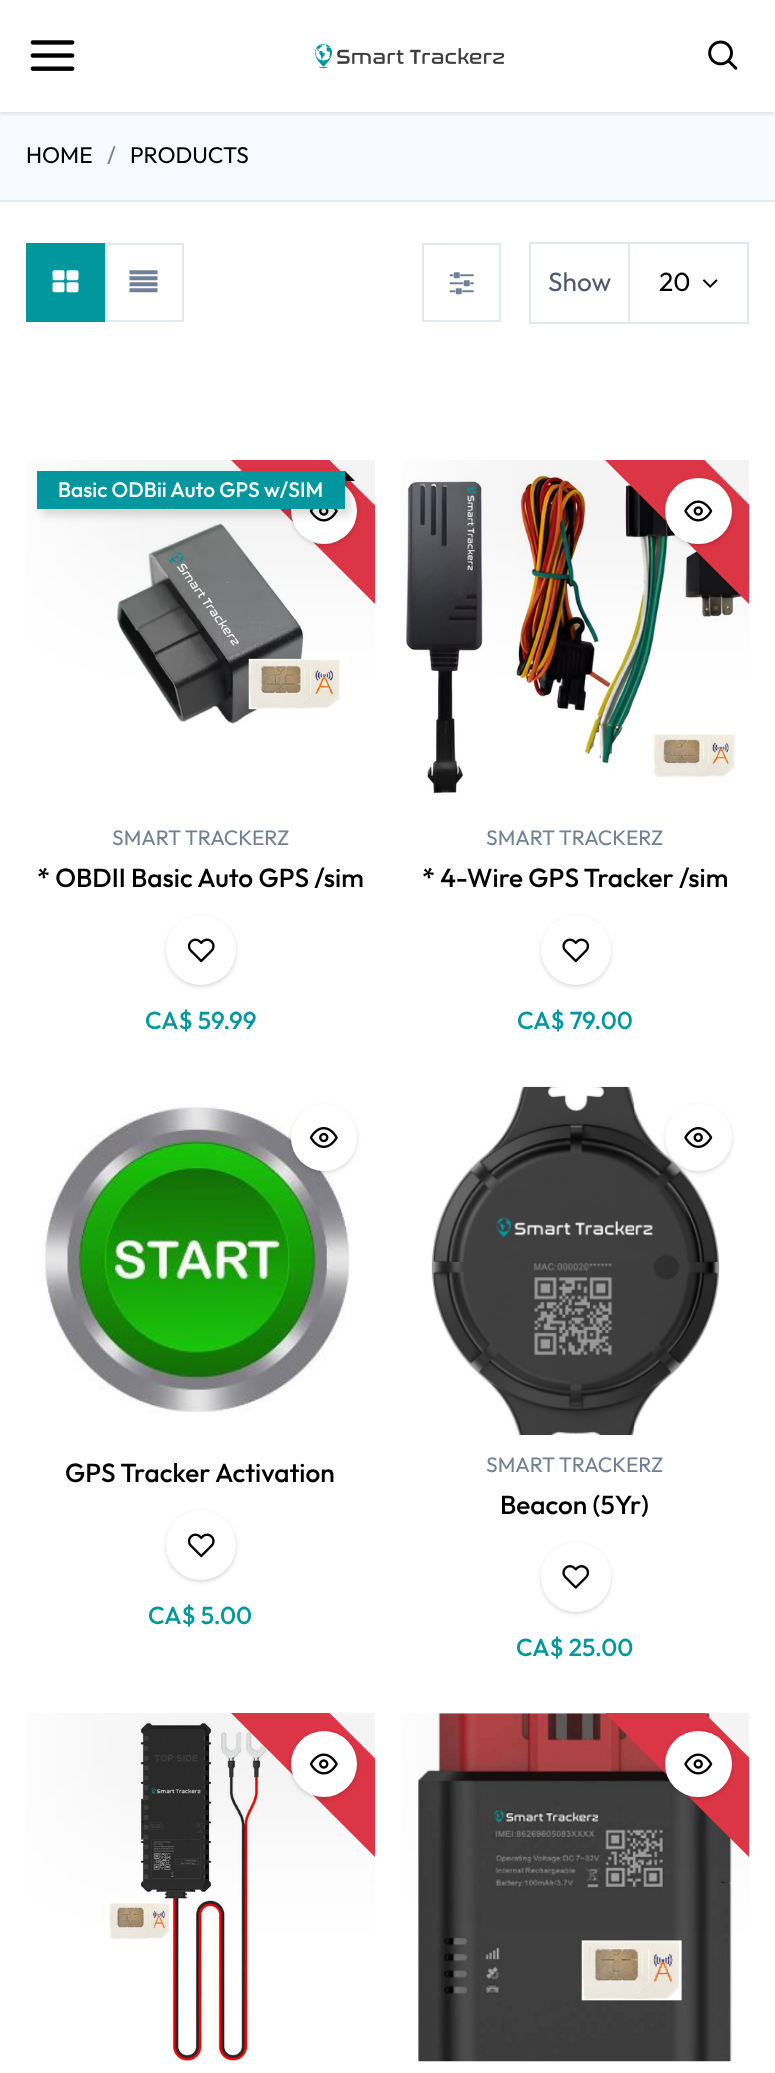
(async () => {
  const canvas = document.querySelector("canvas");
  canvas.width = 775;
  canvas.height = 2073;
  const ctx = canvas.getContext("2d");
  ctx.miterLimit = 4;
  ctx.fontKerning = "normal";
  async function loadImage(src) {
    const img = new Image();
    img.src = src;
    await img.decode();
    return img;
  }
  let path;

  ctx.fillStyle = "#ffffff";
  ctx.fillRect(0, 0, 775, 2073);
  ctx.fillStyle = "#f7faff";
  ctx.fillRect(0, 112, 775, 88);
  ctx.save();
  ctx.beginPath();
  ctx.rect(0, 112, 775, 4);
  ctx.clip();
  ctx.fillStyle = "rgba(0, 0, 0, 0.1)";
  ctx.filter = "blur(2.5px)";
  ctx.beginPath();
  ctx.rect(0, 2, 775, 112);
  ctx.fill();
  ctx.filter = "none";
  ctx.restore();
  ctx.drawImage(await loadImage("img/1.png"), 30, 40, 45, 31);
  ctx.drawImage(await loadImage("img/2.png"), 314, 44, 191, 24);
  ctx.drawImage(await loadImage("img/3.png"), 708, 40, 30, 30);
  ctx.fillStyle = "#e2e8f0";
  ctx.fillRect(0, 200, 775, 2);
  ctx.fillStyle = "#02979f";
  ctx.fillRect(26, 243, 79, 79);
  ctx.drawImage(await loadImage("img/4.png"), 52, 270, 27, 23);
  ctx.strokeStyle = "#e2e8f0";
  ctx.lineWidth = 2;
  ctx.strokeRect(106, 244, 77, 77);
  ctx.drawImage(await loadImage("img/5.png"), 129, 270, 29, 23);
  ctx.strokeRect(423, 244, 77, 77);
  ctx.drawImage(await loadImage("img/6.png"), 449, 272, 25, 23);
  for (const [x, y, w, h, color] of [
    [529, 242, 99, 2, "#e2e8f0"],
    [529, 322, 99, 2, "#e2e8f0"],
    [529, 242, 2, 82, "#e2e8f0"],
  ]) {
    ctx.fillStyle = color;
    ctx.fillRect(x, y, w, h);
  }
  ctx.strokeRect(629, 243, 119, 80);
  ctx.drawImage(await loadImage("img/7.png"), 702, 279, 16, 9);
  ctx.drawImage(await loadImage("img/9.png"), 116, 523, 224, 201);
  ctx.save();
  ctx.beginPath();
  ctx.rect(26, 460, 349, 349);
  ctx.clip();
  ctx.fillStyle = "rgba(0, 0, 0, 0.05)";
  ctx.filter = "blur(61.5px)";
  ctx.beginPath();
  ctx.rect(68, 403, 518, 175);
  ctx.fill();
  ctx.filter = "none";
  ctx.restore();
  ctx.save();
  ctx.beginPath();
  ctx.rect(26, 460, 349, 349);
  ctx.clip();
  ctx.fillStyle = "#dc3545";
  path = new Path2D("M206 337L498 628L449 678L157 386Z");
  ctx.fill(path);
  ctx.restore();
  ctx.fillStyle = "rgba(0, 0, 0, 0.1)";
  ctx.filter = "blur(2px)";
  ctx.beginPath();
  ctx.roundRect(292, 481, 63, 63, 31.5);
  ctx.fill();
  ctx.filter = "none";
  ctx.filter = "blur(2.5px)";
  ctx.beginPath();
  ctx.roundRect(291, 480, 66, 66, 33);
  ctx.fill();
  ctx.filter = "none";
  ctx.fillStyle = "#ffffff";
  ctx.beginPath();
  ctx.arc(324, 511, 33, 0, Math.PI * 2);
  ctx.fill();
  ctx.drawImage(await loadImage("img/8.png"), 309, 509, 29, 13);
  ctx.fillStyle = "rgba(0, 0, 0, 0.15)";
  ctx.filter = "blur(4.5px)";
  ctx.beginPath();
  ctx.rect(42, 476, 308, 39);
  ctx.fill();
  ctx.filter = "none";
  ctx.drawImage(await loadImage("img/11.png"), 406, 470, 343, 325);
  ctx.save();
  ctx.beginPath();
  ctx.rect(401, 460, 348, 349);
  ctx.clip();
  ctx.fillStyle = "rgba(0, 0, 0, 0.05)";
  ctx.filter = "blur(61.5px)";
  ctx.beginPath();
  ctx.rect(443, 403, 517, 175);
  ctx.fill();
  ctx.filter = "none";
  ctx.restore();
  ctx.fillStyle = "#000000";
  path = new Path2D("M355 481H345V471Z");
  ctx.fill(path);
  ctx.fillStyle = "#02979f";
  ctx.fillRect(37, 471, 308, 38);
  ctx.fillStyle = "rgba(0, 0, 0, 0.1)";
  ctx.filter = "blur(2px)";
  ctx.beginPath();
  ctx.roundRect(168, 919, 67, 66, 33);
  ctx.fill();
  ctx.filter = "none";
  ctx.filter = "blur(2.5px)";
  ctx.beginPath();
  ctx.roundRect(166, 917, 70, 70, 35);
  ctx.fill();
  ctx.filter = "none";
  ctx.fillStyle = "#ffffff";
  ctx.beginPath();
  ctx.arc(201, 950, 35, 0, Math.PI * 2);
  ctx.fill();
  ctx.drawImage(await loadImage("img/10.png"), 187, 938, 28, 25);
  ctx.save();
  ctx.beginPath();
  ctx.rect(401, 460, 348, 349);
  ctx.clip();
  ctx.fillStyle = "#dc3545";
  path = new Path2D("M581 337L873 628L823 678L531 386Z");
  ctx.fill(path);
  ctx.restore();
  ctx.fillStyle = "rgba(0, 0, 0, 0.1)";
  ctx.filter = "blur(2px)";
  ctx.beginPath();
  ctx.roundRect(667, 481, 63, 63, 31.5);
  ctx.fill();
  ctx.filter = "none";
  ctx.filter = "blur(2.5px)";
  ctx.beginPath();
  ctx.roundRect(665, 480, 67, 66, 33);
  ctx.fill();
  ctx.filter = "none";
  ctx.fillStyle = "#ffffff";
  ctx.beginPath();
  ctx.roundRect(665, 478, 67, 66, 33);
  ctx.fill();
  ctx.drawImage(await loadImage("img/12.png"), 684, 500, 29, 22);
  ctx.fillStyle = "rgba(0, 0, 0, 0.1)";
  ctx.filter = "blur(2px)";
  ctx.beginPath();
  ctx.roundRect(543, 919, 66, 66, 33);
  ctx.fill();
  ctx.filter = "none";
  ctx.filter = "blur(2.5px)";
  ctx.beginPath();
  ctx.roundRect(541, 917, 70, 70, 35);
  ctx.fill();
  ctx.filter = "none";
  ctx.fillStyle = "#ffffff";
  ctx.beginPath();
  ctx.arc(576, 950, 35, 0, Math.PI * 2);
  ctx.fill();
  ctx.drawImage(await loadImage("img/13.png"), 562, 938, 28, 25);
  ctx.drawImage(await loadImage("img/15.png"), 37, 1104, 314, 309);
  ctx.fillStyle = "rgba(0, 0, 0, 0.1)";
  ctx.filter = "blur(2px)";
  ctx.beginPath();
  ctx.roundRect(292, 1108, 63, 63, 31.5);
  ctx.fill();
  ctx.filter = "none";
  ctx.filter = "blur(2.5px)";
  ctx.beginPath();
  ctx.roundRect(291, 1106, 66, 67, 33);
  ctx.fill();
  ctx.filter = "none";
  ctx.fillStyle = "#ffffff";
  ctx.beginPath();
  ctx.roundRect(291, 1104, 66, 67, 33);
  ctx.fill();
  ctx.drawImage(await loadImage("img/14.png"), 309, 1127, 29, 21);
  ctx.fillStyle = "rgba(0, 0, 0, 0.1)";
  ctx.filter = "blur(2px)";
  ctx.beginPath();
  ctx.roundRect(168, 1514, 67, 66, 33);
  ctx.fill();
  ctx.filter = "none";
  ctx.filter = "blur(2.5px)";
  ctx.beginPath();
  ctx.roundRect(166, 1512, 70, 70, 35);
  ctx.fill();
  ctx.filter = "none";
  ctx.fillStyle = "#ffffff";
  ctx.beginPath();
  ctx.arc(201, 1545, 35, 0, Math.PI * 2);
  ctx.fill();
  ctx.drawImage(await loadImage("img/10.png"), 187, 1533, 28, 25);
  ctx.drawImage(await loadImage("img/16.png"), 431, 1086, 289, 349);
  ctx.fillStyle = "rgba(0, 0, 0, 0.1)";
  ctx.filter = "blur(2px)";
  ctx.beginPath();
  ctx.roundRect(667, 1108, 63, 63, 31.5);
  ctx.fill();
  ctx.filter = "none";
  ctx.filter = "blur(2.5px)";
  ctx.beginPath();
  ctx.roundRect(665, 1106, 67, 67, 33.5);
  ctx.fill();
  ctx.filter = "none";
  ctx.fillStyle = "#ffffff";
  ctx.beginPath();
  ctx.arc(698.5, 1137.5, 33.5, 0, Math.PI * 2);
  ctx.fill();
  ctx.drawImage(await loadImage("img/17.png"), 684, 1127, 29, 21);
  ctx.fillStyle = "rgba(0, 0, 0, 0.1)";
  ctx.filter = "blur(2px)";
  ctx.beginPath();
  ctx.roundRect(543, 1545, 66, 67, 33);
  ctx.fill();
  ctx.filter = "none";
  ctx.filter = "blur(2.5px)";
  ctx.beginPath();
  ctx.roundRect(541, 1544, 70, 70, 35);
  ctx.fill();
  ctx.filter = "none";
  ctx.fillStyle = "#ffffff";
  ctx.beginPath();
  ctx.arc(576, 1577, 35, 0, Math.PI * 2);
  ctx.fill();
  ctx.drawImage(await loadImage("img/18.png"), 562, 1565, 28, 24);
  ctx.drawImage(await loadImage("img/19.png"), 109, 1721, 158, 341);
  ctx.save();
  ctx.beginPath();
  ctx.rect(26, 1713, 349, 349);
  ctx.clip();
  ctx.fillStyle = "rgba(0, 0, 0, 0.05)";
  ctx.filter = "blur(61.5px)";
  ctx.beginPath();
  ctx.rect(68, 1656, 518, 175);
  ctx.fill();
  ctx.filter = "none";
  ctx.restore();
  ctx.save();
  ctx.beginPath();
  ctx.rect(26, 1713, 349, 349);
  ctx.clip();
  ctx.fillStyle = "#dc3545";
  path = new Path2D("M206 1590L498 1881L449 1931L157 1639Z");
  ctx.fill(path);
  ctx.restore();
  ctx.fillStyle = "rgba(0, 0, 0, 0.1)";
  ctx.filter = "blur(2px)";
  ctx.beginPath();
  ctx.roundRect(292, 1734, 63, 63, 31.5);
  ctx.fill();
  ctx.filter = "none";
  ctx.filter = "blur(2.5px)";
  ctx.beginPath();
  ctx.roundRect(291, 1733, 66, 66, 33);
  ctx.fill();
  ctx.filter = "none";
  ctx.fillStyle = "#ffffff";
  ctx.beginPath();
  ctx.arc(324, 1764, 33, 0, Math.PI * 2);
  ctx.fill();
  ctx.drawImage(await loadImage("img/20.png"), 309, 1753, 29, 22);
  ctx.drawImage(await loadImage("img/21.png"), 418, 1713, 316, 349);
  ctx.save();
  ctx.beginPath();
  ctx.rect(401, 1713, 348, 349);
  ctx.clip();
  ctx.fillStyle = "rgba(0, 0, 0, 0.05)";
  ctx.filter = "blur(61.5px)";
  ctx.beginPath();
  ctx.rect(443, 1656, 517, 175);
  ctx.fill();
  ctx.filter = "none";
  ctx.restore();
  ctx.save();
  ctx.beginPath();
  ctx.rect(401, 1713, 348, 349);
  ctx.clip();
  ctx.fillStyle = "#dc3545";
  path = new Path2D("M581 1590L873 1881L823 1931L531 1639Z");
  ctx.fill(path);
  ctx.restore();
  ctx.fillStyle = "rgba(0, 0, 0, 0.1)";
  ctx.filter = "blur(2px)";
  ctx.beginPath();
  ctx.roundRect(667, 1734, 63, 63, 31.5);
  ctx.fill();
  ctx.filter = "none";
  ctx.filter = "blur(2.5px)";
  ctx.beginPath();
  ctx.roundRect(665, 1733, 67, 66, 33);
  ctx.fill();
  ctx.filter = "none";
  ctx.fillStyle = "#ffffff";
  ctx.beginPath();
  ctx.roundRect(665, 1731, 67, 66, 33);
  ctx.fill();
  ctx.drawImage(await loadImage("img/12.png"), 684, 1753, 29, 22);
  ctx.font = "22.75px Outfit";
  ctx.fillStyle = "#000000";
  ctx.fillText("HOME", 26, 163);
  ctx.fillStyle = "#718096";
  ctx.fillText("/", 107, 163);
  ctx.fillStyle = "#000000";
  ctx.fillText("PRODUCTS", 130, 163);
  ctx.font = "26.25px Outfit";
  ctx.fillStyle = "#51596c";
  ctx.fillText("Show", 548, 291);
  ctx.fillStyle = "#000000";
  ctx.fillText("20", 659, 291);
  ctx.font = "500 21px Outfit";
  ctx.fillStyle = "#ffffff";
  ctx.fillText("Basic ODBii Auto GPS w/SIM", 58, 497);
  ctx.font = "21px Outfit";
  ctx.fillStyle = "#718096";
  ctx.fillText("SMART TRACKERZ", 112, 845);
  ctx.font = "500 26.25px Outfit";
  ctx.fillStyle = "#000000";
  ctx.fillText("* OBDII Basic Auto GPS /sim", 37, 887);
  ctx.font = "500 24.5px Outfit";
  ctx.fillStyle = "#02979f";
  ctx.fillText("CA$ 59.99", 145, 1029);
  ctx.font = "21px Outfit";
  ctx.fillStyle = "#718096";
  ctx.fillText("SMART TRACKERZ", 486, 845);
  ctx.font = "500 26.25px Outfit";
  ctx.fillStyle = "#000000";
  ctx.fillText("* 4-Wire GPS Tracker /sim", 422, 887);
  ctx.font = "500 24.5px Outfit";
  ctx.fillStyle = "#02979f";
  ctx.fillText("CA$ 79.00", 517, 1029);
  ctx.font = "500 26.25px Outfit";
  ctx.fillStyle = "#000000";
  ctx.fillText("GPS Tracker Activation", 65, 1482);
  ctx.font = "500 24.5px Outfit";
  ctx.fillStyle = "#02979f";
  ctx.fillText("CA$ 5.00", 148, 1624);
  ctx.font = "21px Outfit";
  ctx.fillStyle = "#718096";
  ctx.fillText("SMART TRACKERZ", 486, 1472);
  ctx.font = "500 26.25px Outfit";
  ctx.fillStyle = "#000000";
  ctx.fillText("Beacon (5Yr)", 500, 1514);
  ctx.font = "500 24.5px Outfit";
  ctx.fillStyle = "#02979f";
  ctx.fillText("CA$ 25.00", 516, 1656);
})();
